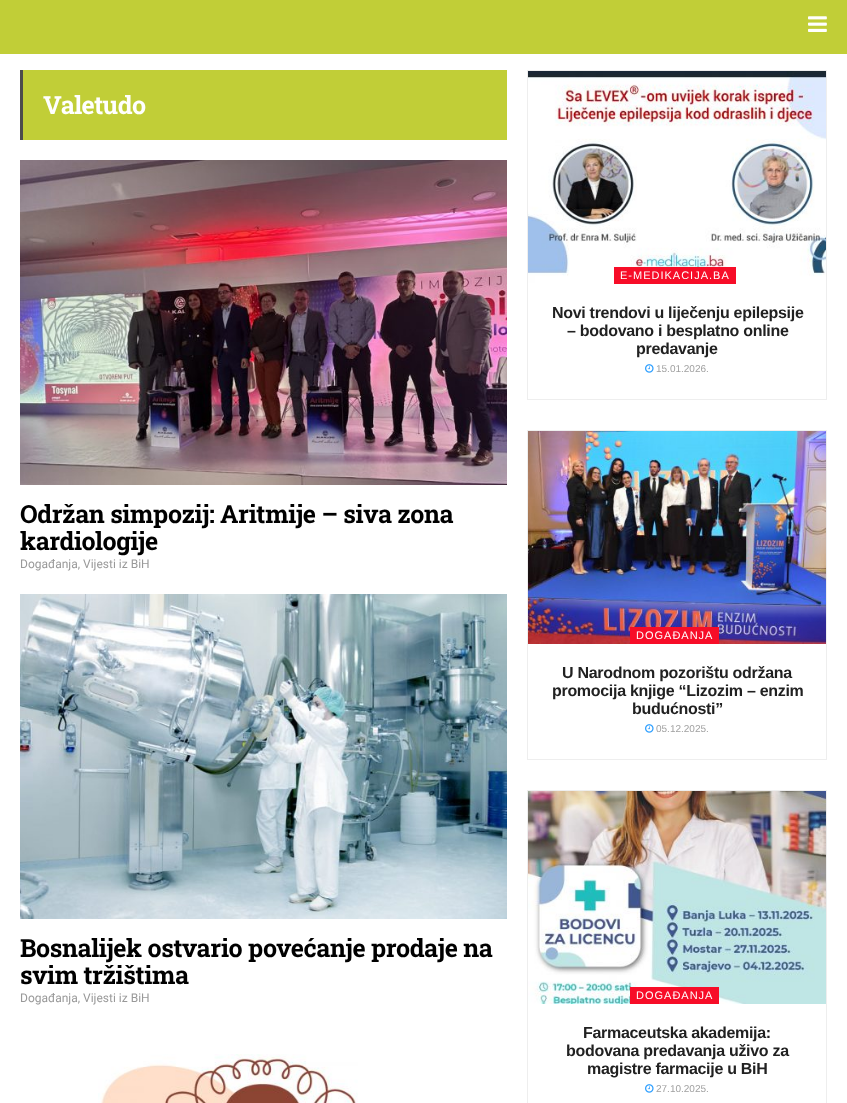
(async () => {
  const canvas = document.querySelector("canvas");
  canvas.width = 847;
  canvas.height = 1103;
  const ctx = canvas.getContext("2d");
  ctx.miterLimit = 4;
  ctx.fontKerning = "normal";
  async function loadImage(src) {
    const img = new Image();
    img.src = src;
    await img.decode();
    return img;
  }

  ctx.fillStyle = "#ffffff";
  ctx.fillRect(0, 0, 847, 1103);
  ctx.fillStyle = "#c1ce37";
  ctx.fillRect(0, 0, 847, 54);
  ctx.drawImage(await loadImage("img/1.png"), 808, 16, 19, 16);
  ctx.fillRect(23, 70, 484, 70);
  ctx.fillStyle = "#4c4c4c";
  ctx.fillRect(20, 70, 3, 70);
  ctx.drawImage(await loadImage("img/2.png"), 20, 160, 487, 325);
  ctx.drawImage(await loadImage("img/3.png"), 20, 594, 487, 325);
  ctx.drawImage(await loadImage("img/4.png"), 98, 1054, 260, 49);
  ctx.strokeStyle = "#eeeeee";
  ctx.strokeRect(527.5, 70.5, 299, 329);
  ctx.drawImage(await loadImage("img/5.png"), 528, 71, 298, 213);
  ctx.fillStyle = "#f70d28";
  ctx.fillRect(614, 267, 122, 17);
  ctx.drawImage(await loadImage("img/6.png"), 645, 364, 9, 9);
  ctx.strokeRect(527.5, 430.5, 299, 329);
  ctx.drawImage(await loadImage("img/7.png"), 528, 431, 298, 213);
  ctx.fillRect(630, 627, 89, 17);
  ctx.drawImage(await loadImage("img/6.png"), 645, 724, 9, 9);
  ctx.strokeRect(527.5, 790.5, 299, 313);
  ctx.drawImage(await loadImage("img/8.png"), 528, 791, 298, 213);
  ctx.fillRect(630, 987, 89, 17);
  ctx.drawImage(await loadImage("img/6.png"), 645, 1084, 9, 9);
  ctx.letterSpacing = "-0.5px";
  ctx.font = "bold 25px Roboto Slab";
  ctx.fillStyle = "#ffffff";
  ctx.fillText("Valetudo", 43, 114);
  ctx.letterSpacing = "-0.4px";
  ctx.fillStyle = "#000000";
  ctx.fillText("Održan simpozij: Aritmije – siva zona", 20, 523);
  ctx.fillText("kardiologije", 20, 550);
  ctx.letterSpacing = "0px";
  ctx.font = "12px Roboto";
  ctx.fillStyle = "#999999";
  ctx.fillText("Događanja, Vijesti iz BiH", 20, 568);
  ctx.letterSpacing = "-0.4px";
  ctx.font = "bold 25px Roboto Slab";
  ctx.fillStyle = "#000000";
  ctx.fillText("Bosnalijek ostvario povećanje prodaje na", 20, 957);
  ctx.fillText("svim tržištima", 20, 984);
  ctx.letterSpacing = "0px";
  ctx.font = "12px Roboto";
  ctx.fillStyle = "#999999";
  ctx.fillText("Događanja, Vijesti iz BiH", 20, 1002);
  ctx.letterSpacing = "1px";
  ctx.font = "11px Liberation Sans";
  ctx.fillStyle = "#ffffff";
  ctx.fillText("E-MEDIKACIJA.BA", 620, 279);
  ctx.letterSpacing = "-0.3px";
  ctx.font = "bold 16px Liberation Sans";
  ctx.fillStyle = "#212121";
  for (const [text, x, y] of [
    ["Novi trendovi u liječenju epilepsije", 552, 318],
    ["– bodovano i besplatno online", 567, 336],
    ["predavanje", 636, 354],
  ]) {
    ctx.fillText(text, x, y);
  }
  ctx.letterSpacing = "0px";
  ctx.font = "10px Liberation Sans";
  ctx.fillStyle = "#a0a0a0";
  ctx.fillText("15.01.2026.", 656, 372);
  ctx.letterSpacing = "1px";
  ctx.font = "11px Liberation Sans";
  ctx.fillStyle = "#ffffff";
  ctx.fillText("DOGAĐANJA", 636, 639);
  ctx.letterSpacing = "-0.3px";
  ctx.font = "bold 16px Liberation Sans";
  ctx.fillStyle = "#212121";
  for (const [text, x, y] of [
    ["U Narodnom pozorištu održana", 562, 678],
    ["promocija knjige “Lizozim – enzim", 552, 696],
    ["budućnosti”", 632, 714],
  ]) {
    ctx.fillText(text, x, y);
  }
  ctx.letterSpacing = "0px";
  ctx.font = "10px Liberation Sans";
  ctx.fillStyle = "#a0a0a0";
  ctx.fillText("05.12.2025.", 656, 732);
  ctx.letterSpacing = "1px";
  ctx.font = "11px Liberation Sans";
  ctx.fillStyle = "#ffffff";
  ctx.fillText("DOGAĐANJA", 636, 999);
  ctx.letterSpacing = "-0.3px";
  ctx.font = "bold 16px Liberation Sans";
  ctx.fillStyle = "#212121";
  for (const [text, x, y] of [
    ["Farmaceutska akademija:", 583, 1038],
    ["bodovana predavanja uživo za", 566, 1056],
    ["magistre farmacije u BiH", 587, 1074],
  ]) {
    ctx.fillText(text, x, y);
  }
  ctx.letterSpacing = "0px";
  ctx.font = "10px Liberation Sans";
  ctx.fillStyle = "#a0a0a0";
  ctx.fillText("27.10.2025.", 656, 1092);
})();
